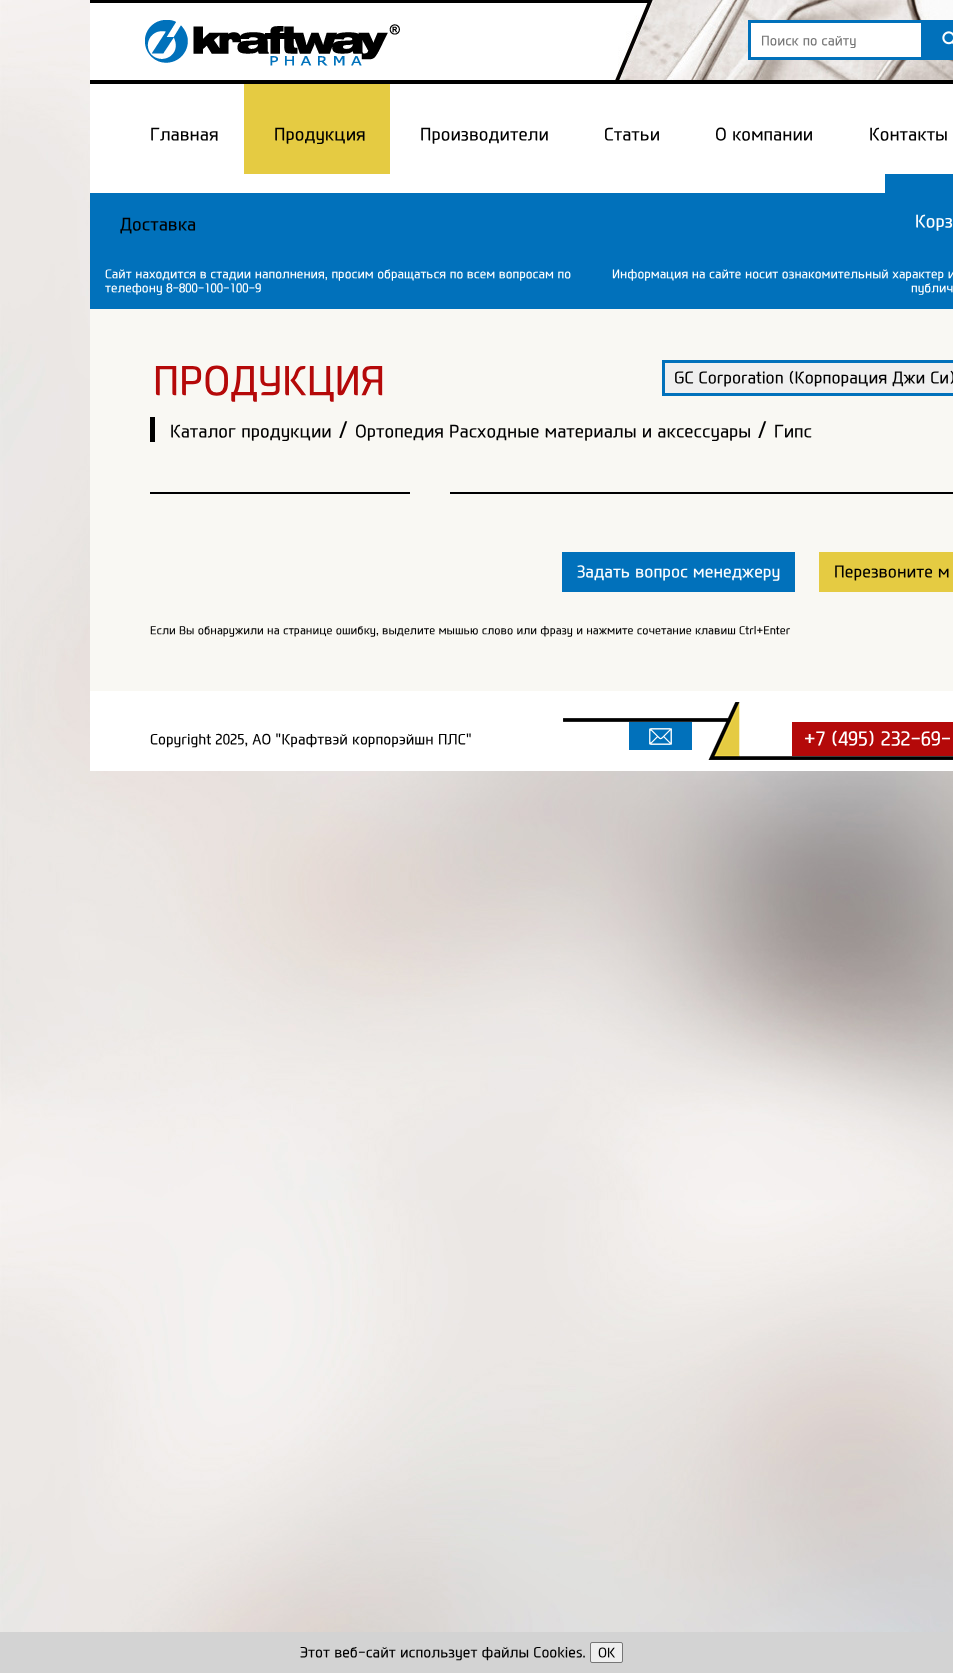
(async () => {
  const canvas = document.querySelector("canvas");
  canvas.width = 953;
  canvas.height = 1673;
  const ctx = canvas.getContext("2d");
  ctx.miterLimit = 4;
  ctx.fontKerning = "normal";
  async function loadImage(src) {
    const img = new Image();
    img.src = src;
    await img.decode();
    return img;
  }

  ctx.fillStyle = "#ffffff";
  ctx.fillRect(0, 0, 953, 1673);
  ctx.drawImage(await loadImage("img/1.png"), 0, 0, 953, 1632);
  ctx.drawImage(await loadImage("img/2.png"), 90, 0, 863, 80);
  ctx.fillStyle = "#000000";
  ctx.fillRect(90, 80, 863, 4);
  ctx.drawImage(await loadImage("img/3.png"), 145, 20, 255, 46);
  ctx.fillStyle = "#ffffff";
  ctx.beginPath();
  ctx.rect(749.5, 21.5, 173, 37);
  ctx.fill();
  ctx.strokeStyle = "#0171bb";
  ctx.lineWidth = 3;
  ctx.stroke();
  ctx.fillStyle = "#0171bb";
  ctx.fillRect(924, 20, 29, 40);
  ctx.drawImage(await loadImage("img/4.png"), 942, 31, 11, 14);
  for (const [x, y, w, h, color] of [
    [90, 84, 863, 90, "#ffffff"],
    [244, 84, 146, 90, "#e5cb42"],
    [885, 174, 68, 19, "#0171bb"],
    [90, 174, 795, 19, "#ffffff"],
    [90, 193, 863, 116, "#0171bb"],
    [90, 309, 863, 382, "#f9f8f3"],
  ]) {
    ctx.fillStyle = color;
    ctx.fillRect(x, y, w, h);
  }
  ctx.fillStyle = "#efefef";
  ctx.beginPath();
  ctx.rect(663.5, 361.5, 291, 33);
  ctx.fill();
  ctx.stroke();
  for (const [x, y, w, h, color] of [
    [150, 417, 5, 25, "#000000"],
    [150, 492, 260, 2, "#000000"],
    [450, 492, 503, 2, "#000000"],
    [562, 552, 233, 40, "#0171bb"],
    [819, 552, 134, 40, "#e5cb42"],
    [90, 691, 863, 80, "#ffffff"],
  ]) {
    ctx.fillStyle = color;
    ctx.fillRect(x, y, w, h);
  }
  ctx.drawImage(await loadImage("img/5.png"), 563, 702, 390, 58);
  ctx.fillStyle = "#0171bb";
  ctx.fillRect(629, 722, 63, 28);
  ctx.drawImage(await loadImage("img/6.png"), 649, 728, 23, 17);
  ctx.fillStyle = "#b40909";
  ctx.fillRect(792, 722, 161, 34);
  ctx.fillStyle = "#d3d3d3";
  ctx.fillRect(0, 1632, 953, 41);
  ctx.fillStyle = "#efefef";
  ctx.beginPath();
  ctx.roundRect(590.5, 1642.5, 32, 20, 1.5);
  ctx.fill();
  ctx.strokeStyle = "#767676";
  ctx.lineWidth = 1;
  ctx.stroke();
  ctx.save();
  ctx.beginPath();
  ctx.rect(761, 33, 158, 15);
  ctx.clip();
  ctx.font = "500 13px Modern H";
  ctx.fillStyle = "#777777";
  ctx.fillText("Поиск по сайту", 761, 45);
  ctx.restore();
  ctx.font = "500 17px Modern H";
  ctx.fillStyle = "#000000";
  for (const [text, x, y] of [
    ["Главная", 150, 140],
    ["Продукция", 274, 140],
    ["Производители", 420, 140],
    ["Статьи", 604, 140],
    ["О компании", 715, 140],
    ["Контакты", 869, 140],
    ["Доставка", 120, 230],
  ]) {
    ctx.fillText(text, x, y);
  }
  ctx.fillStyle = "#ffffff";
  ctx.fillText("Корз", 915, 227);
  ctx.font = "500 12px Modern H";
  for (const [text, x, y] of [
    ["Сайт находится в стадии наполнения, просим обращаться по всем вопросам по", 105, 278],
    ["телефону 8-800-100-100-9", 105, 292],
    ["Информация на сайте носит ознакомительный характер и", 612, 278],
    ["публич", 911, 292],
  ]) {
    ctx.fillText(text, x, y);
  }
  ctx.font = "500 39px Modern H";
  ctx.fillStyle = "#b50909";
  ctx.fillText("ПРОДУКЦИЯ", 153, 394);
  ctx.font = "500 16px Modern H";
  ctx.fillStyle = "#000000";
  ctx.fillText("GC Corporation (Корпорация Джи Си)", 674, 383);
  ctx.font = "500 17px Modern H";
  ctx.fillText("Каталог продукции", 170, 437);
  ctx.font = "500 21px Modern H";
  ctx.fillText("/", 338, 437);
  ctx.font = "500 17px Modern H";
  ctx.fillText("Ортопедия Расходные материалы и аксессуары", 355, 437);
  ctx.font = "500 21px Modern H";
  ctx.fillText("/", 757, 437);
  ctx.font = "500 17px Modern H";
  ctx.fillText("Гипс", 774, 437);
  ctx.font = "500 16px Modern H";
  ctx.fillStyle = "#ffffff";
  ctx.fillText("Задать вопрос менеджеру", 577, 577);
  ctx.fillStyle = "#000000";
  ctx.fillText("Перезвоните м", 834, 577);
  ctx.font = "500 11px Modern H";
  ctx.fillText("Если Вы обнаружили на странице ошибку, выделите мышью слово или фразу и нажмите сочетание клавиш Ctrl+Enter", 150, 634);
  ctx.font = "500 14px Modern H";
  ctx.fillText("Copyright 2025, АО \"Крафтвэй корпорэйшн ПЛС\"", 150, 744);
  ctx.font = "500 19px Modern H";
  ctx.fillStyle = "#ffffff";
  ctx.fillText("+7 (495) 232-69-", 804, 745);
  ctx.font = "500 14px Modern H";
  ctx.fillStyle = "#000000";
  ctx.fillText("Этот веб-сайт использует файлы Cookies.", 300, 1657);
  ctx.font = "500 13px Modern H";
  ctx.fillText("OK", 598, 1657);
})();
